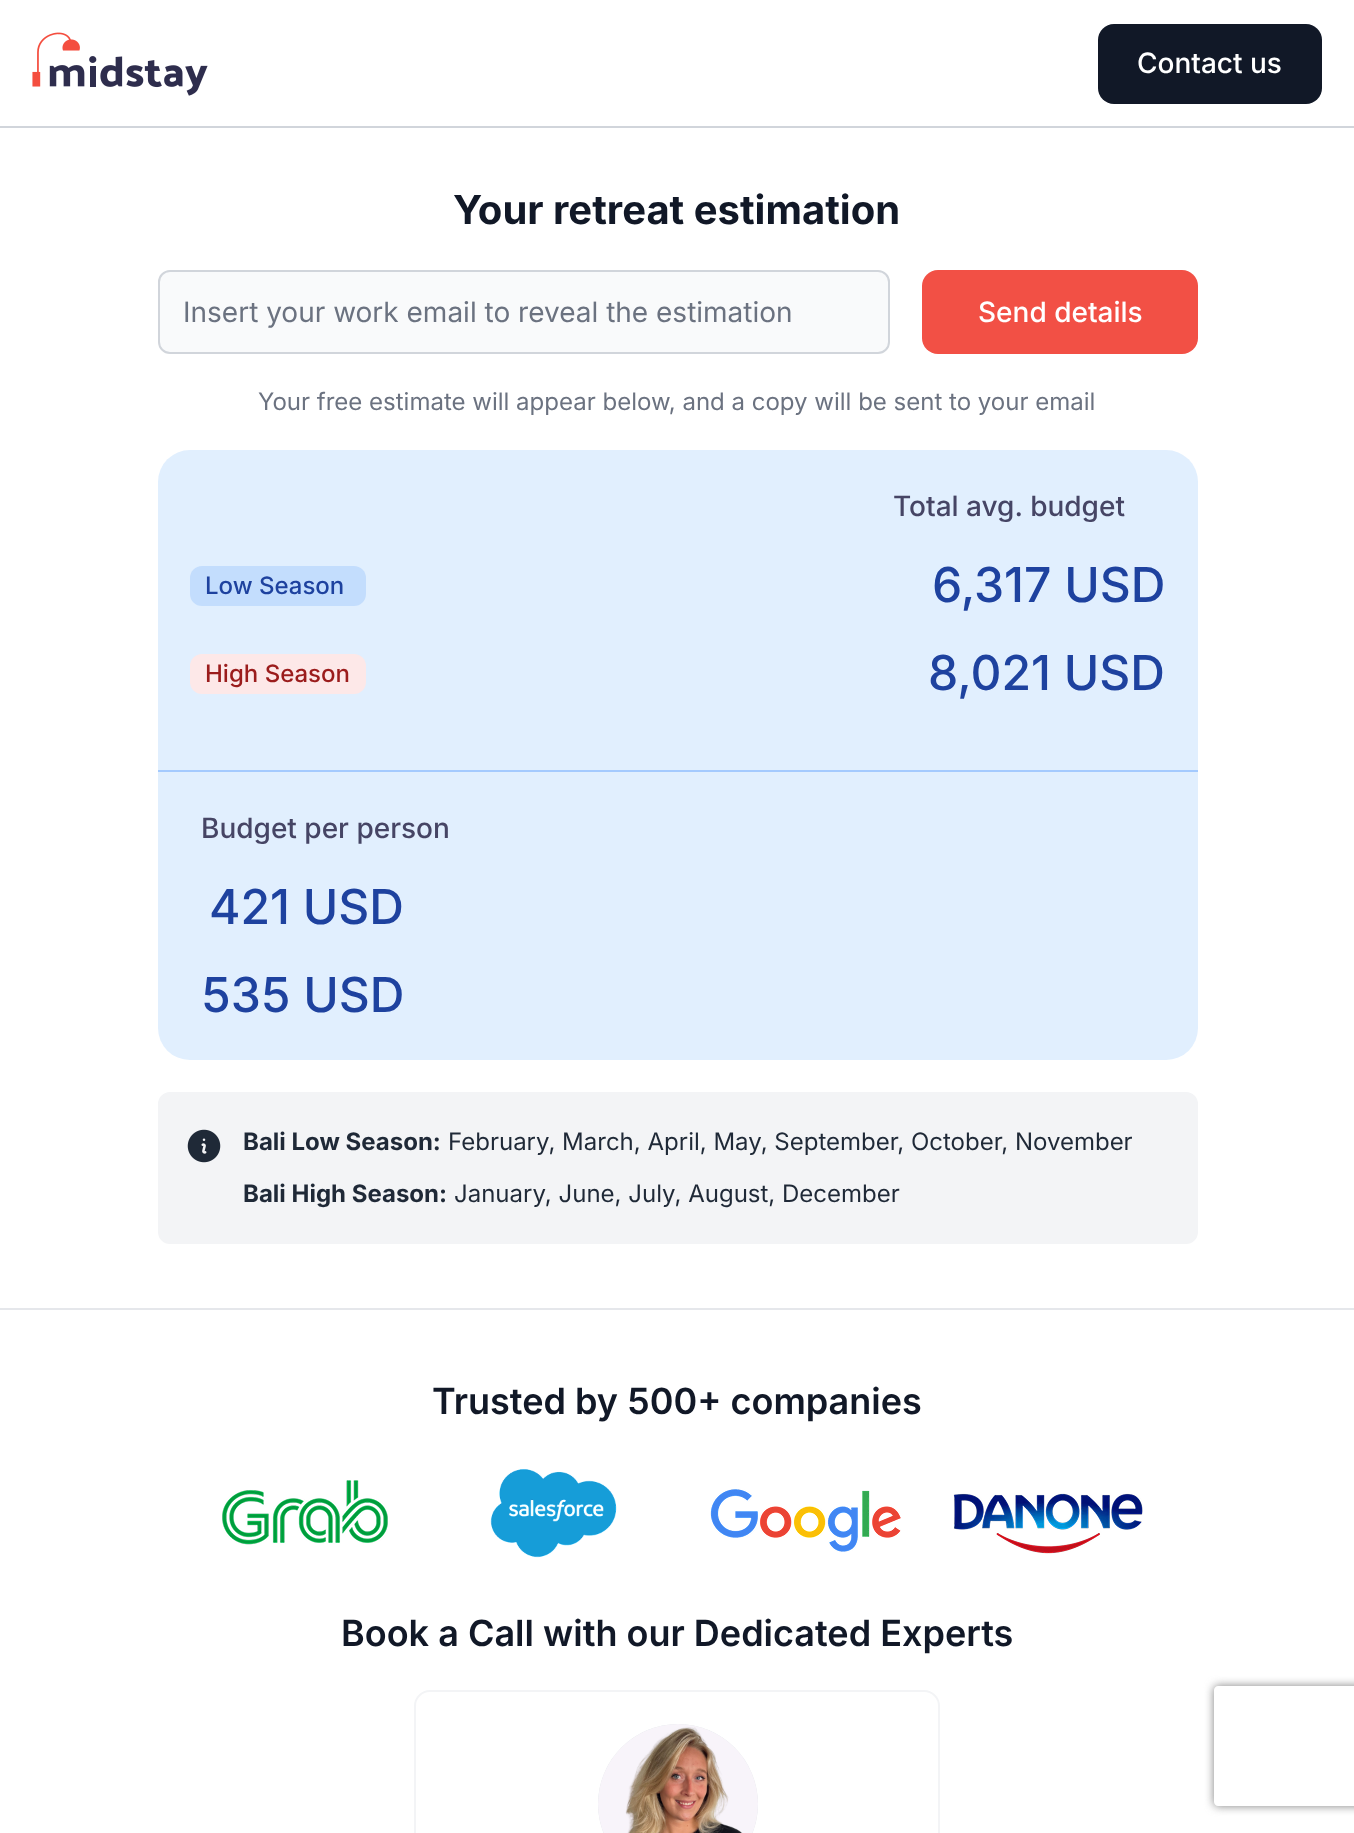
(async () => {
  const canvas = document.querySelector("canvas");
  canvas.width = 1354;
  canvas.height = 1833;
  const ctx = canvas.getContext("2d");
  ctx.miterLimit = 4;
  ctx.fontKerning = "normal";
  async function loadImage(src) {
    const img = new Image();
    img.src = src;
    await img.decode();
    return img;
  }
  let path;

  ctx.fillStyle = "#ffffff";
  ctx.fillRect(0, 0, 1354, 1833);
  ctx.fillStyle = "#d1d5db";
  ctx.fillRect(0, 126, 1354, 2);
  ctx.drawImage(await loadImage("img/1.png"), 32, 32, 176, 64);
  ctx.fillStyle = "#111827";
  ctx.beginPath();
  ctx.roundRect(1098, 24, 224, 80, 16);
  ctx.fill();
  ctx.fillStyle = "#f9fafb";
  ctx.beginPath();
  ctx.roundRect(159, 271, 730, 82, 11);
  ctx.fill();
  ctx.strokeStyle = "#d1d5db";
  ctx.lineWidth = 2;
  ctx.stroke();
  ctx.fillStyle = "#f25045";
  ctx.beginPath();
  ctx.roundRect(922, 270, 276, 84, 16);
  ctx.fill();
  ctx.fillStyle = "#e1effe";
  ctx.beginPath();
  ctx.roundRect(158, 450, 1040, 610, 32);
  ctx.fill();
  ctx.fillStyle = "#c3ddfd";
  ctx.beginPath();
  ctx.roundRect(190, 566, 176, 40, 12);
  ctx.fill();
  ctx.fillStyle = "#fde8e8";
  ctx.beginPath();
  ctx.roundRect(190, 654, 176, 40, 12);
  ctx.fill();
  ctx.fillStyle = "#a4cafe";
  ctx.fillRect(158, 770, 1040, 2);
  ctx.fillStyle = "#f3f4f6";
  ctx.beginPath();
  ctx.roundRect(159, 1093, 1038, 150, 11);
  ctx.fill();
  ctx.strokeStyle = "#f3f4f6";
  ctx.stroke();
  ctx.drawImage(await loadImage("img/2.png"), 187, 1129, 34, 34);
  ctx.fillStyle = "#e5e7eb";
  ctx.fillRect(0, 1308, 1354, 2);
  ctx.drawImage(await loadImage("img/3.png"), 222, 1480, 166, 65);
  ctx.drawImage(await loadImage("img/4.png"), 490, 1469, 127, 89);
  ctx.drawImage(await loadImage("img/5.png"), 710, 1489, 191, 63);
  ctx.drawImage(await loadImage("img/6.png"), 953, 1493, 190, 61);
  ctx.beginPath();
  ctx.roundRect(415, 1691, 524, 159, 15);
  ctx.stroke();
  ctx.beginPath();
  ctx.arc(678, 1804, 80, 0, Math.PI * 2);
  ctx.fill();
  ctx.drawImage(await loadImage("img/7.png"), 598, 1724, 160, 109);
  ctx.save();
  path = new Path2D("M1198 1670H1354V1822H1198ZM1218 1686H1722C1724 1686 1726 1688 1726 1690V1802C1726 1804 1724 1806 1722 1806H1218C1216 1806 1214 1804 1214 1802V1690C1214 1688 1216 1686 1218 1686Z");
  ctx.clip(path, "evenodd");
  ctx.fillStyle = "#808080";
  ctx.filter = "blur(5px)";
  ctx.beginPath();
  ctx.roundRect(1214, 1686, 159, 120, 4);
  ctx.fill();
  ctx.filter = "none";
  ctx.restore();
  ctx.font = "500 28px Inter";
  ctx.fillStyle = "#ffffff";
  ctx.fillText("Contact us", 1137, 73);
  ctx.font = "bold 40px Inter";
  ctx.fillStyle = "#111827";
  ctx.fillText("Your retreat estimation", 453, 224);
  ctx.font = "28px Inter";
  ctx.fillStyle = "#6b7280";
  ctx.fillText("Insert your work email to reveal the estimation", 183, 322);
  ctx.font = "500 28px Inter";
  ctx.fillStyle = "#ffffff";
  ctx.fillText("Send details", 978, 322);
  ctx.font = "24px Inter";
  ctx.fillStyle = "#6b7280";
  ctx.fillText("Your free estimate will appear below, and a copy will be sent to your email", 258, 410);
  ctx.font = "500 28px Inter";
  ctx.fillStyle = "#464565";
  ctx.fillText("Total avg. budget", 893, 516);
  ctx.font = "500 24px Inter";
  ctx.fillStyle = "#1e429f";
  ctx.fillText("Low Season", 205, 594);
  ctx.font = "500 48px Inter";
  ctx.fillText("6,317 USD", 932, 602);
  ctx.font = "500 24px Inter";
  ctx.fillStyle = "#9b1c1c";
  ctx.fillText("High Season", 205, 682);
  ctx.font = "500 48px Inter";
  ctx.fillStyle = "#1e429f";
  ctx.fillText("8,021 USD", 928, 690);
  ctx.font = "500 28px Inter";
  ctx.fillStyle = "#464565";
  ctx.fillText("Budget per person", 201, 838);
  ctx.font = "500 48px Inter";
  ctx.fillStyle = "#1e429f";
  ctx.fillText("421 USD", 209, 924);
  ctx.fillText("535 USD", 201, 1012);
  ctx.font = "bold 24px Inter";
  ctx.fillStyle = "#1f2937";
  ctx.fillText("Bali Low Season:", 243, 1150);
  ctx.font = "24px Inter";
  ctx.fillText("February, March, April, May, September, October, November", 448, 1150);
  ctx.font = "bold 24px Inter";
  ctx.fillText("Bali High Season:", 243, 1202);
  ctx.font = "24px Inter";
  ctx.fillText("January, June, July, August, December", 454, 1202);
  ctx.font = "600 36px Inter";
  ctx.fillStyle = "#111827";
  ctx.fillText("Trusted by 500+ companies", 432, 1414);
  ctx.fillText("Book a Call with our Dedicated Experts", 341, 1646);
})();
